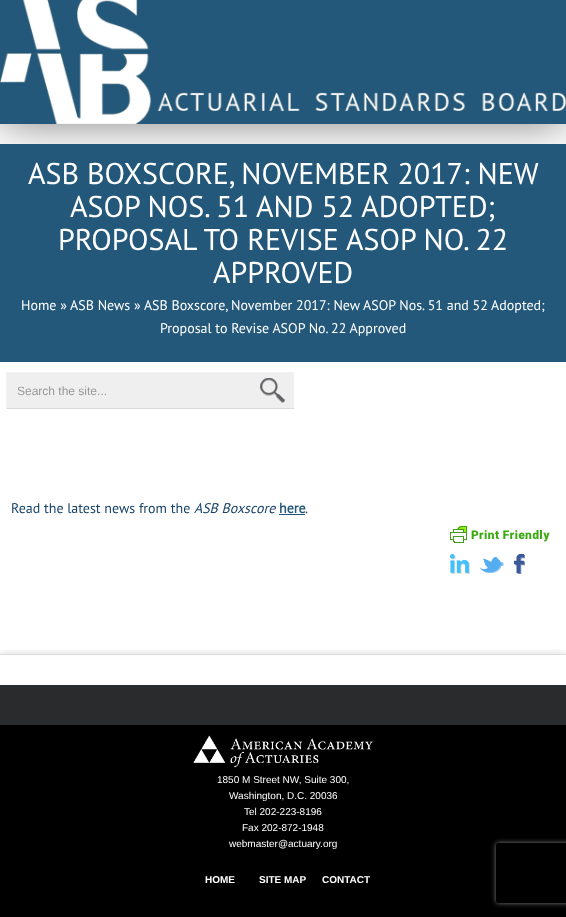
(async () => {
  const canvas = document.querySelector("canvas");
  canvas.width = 566;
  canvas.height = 917;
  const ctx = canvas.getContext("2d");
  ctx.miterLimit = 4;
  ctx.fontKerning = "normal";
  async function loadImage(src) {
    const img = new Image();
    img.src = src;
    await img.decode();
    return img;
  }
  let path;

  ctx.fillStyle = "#ffffff";
  ctx.fillRect(0, 0, 566, 917);
  ctx.fillStyle = "rgba(0, 0, 0, 0.5)";
  ctx.filter = "blur(22.5px)";
  ctx.beginPath();
  ctx.rect(0, -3, 566, 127);
  ctx.fill();
  ctx.filter = "none";
  ctx.fillStyle = "#24587a";
  ctx.fillRect(0, 0, 566, 124);
  ctx.drawImage(await loadImage("img/1.png"), 0, 0, 566, 124);
  for (const [x, y, w, h, color] of [
    [0, 144, 566, 218, "#24587a"],
    [7, 373, 286, 35, "#efefef"],
    [6, 372, 288, 1, "#f2f2f2"],
    [293, 372, 1, 37, "#f2f2f2"],
    [6, 408, 288, 1, "#d9d9d9"],
    [6, 372, 1, 37, "#f2f2f2"],
  ]) {
    ctx.fillStyle = color;
    ctx.fillRect(x, y, w, h);
  }
  ctx.drawImage(await loadImage("img/2.png"), 260, 378, 25, 25);
  ctx.fillStyle = "#24587a";
  ctx.fillRect(279, 514, 26, 1);
  ctx.drawImage(await loadImage("img/3.png"), 450, 526, 100, 17);
  ctx.drawImage(await loadImage("img/4.png"), 450, 554, 20, 20);
  ctx.drawImage(await loadImage("img/5.png"), 480, 557, 24, 16);
  ctx.drawImage(await loadImage("img/6.png"), 514, 554, 11, 20);
  ctx.save();
  ctx.beginPath();
  ctx.rect(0, 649, 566, 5);
  ctx.clip();
  ctx.fillStyle = "rgba(0, 0, 0, 0.2)";
  ctx.filter = "blur(5px)";
  ctx.beginPath();
  ctx.rect(0, 655, 566, 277);
  ctx.fill();
  ctx.filter = "none";
  ctx.restore();
  for (const [x, y, w, h, color] of [
    [0, 654, 566, 1, "#dddddd"],
    [0, 685, 566, 40, "#2a2b2c"],
    [0, 725, 566, 192, "#000000"],
  ]) {
    ctx.fillStyle = color;
    ctx.fillRect(x, y, w, h);
  }
  ctx.drawImage(await loadImage("img/7.png"), 193, 735, 180, 33);
  ctx.save();
  path = new Path2D("M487 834H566V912H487ZM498 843H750C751 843 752 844 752 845V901C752 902 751 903 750 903H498C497 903 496 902 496 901V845C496 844 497 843 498 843Z");
  ctx.clip(path, "evenodd");
  ctx.fillStyle = "#808080";
  ctx.filter = "blur(2.5px)";
  ctx.beginPath();
  ctx.roundRect(496, 843, 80, 60, 2);
  ctx.fill();
  ctx.filter = "none";
  ctx.restore();
  ctx.font = "30px PT Sans";
  ctx.fillStyle = "#ffffff";
  for (const [text, x, y] of [
    ["ASB BOXSCORE, NOVEMBER 2017: NEW", 28, 184],
    ["ASOP NOS. 51 AND 52 ADOPTED;", 70, 217],
    ["PROPOSAL TO REVISE ASOP NO. 22", 58, 250],
    ["APPROVED", 213, 283],
  ]) {
    ctx.fillText(text, x, y);
  }
  ctx.font = "14px PT Sans";
  ctx.fillText("Home » ASB News » ASB Boxscore, November 2017: New ASOP Nos. 51 and 52 Adopted;", 21, 310);
  ctx.fillText("Proposal to Revise ASOP No. 22 Approved", 160, 333);
  ctx.font = "12px Liberation Sans";
  ctx.fillStyle = "#999999";
  ctx.fillText("Search the site...", 17, 395);
  ctx.font = "14px PT Sans";
  ctx.fillStyle = "#174368";
  ctx.fillText("Read the latest news from the", 11, 513);
  ctx.font = "italic 14px PT Sans";
  ctx.fillText("ASB Boxscore", 194, 513);
  ctx.font = "bold 14px PT Sans";
  ctx.fillStyle = "#24587a";
  ctx.fillText("here", 279, 513);
  ctx.font = "14px PT Sans";
  ctx.fillStyle = "#174368";
  ctx.fillText(".", 305, 513);
  ctx.font = "10px Liberation Sans";
  ctx.fillStyle = "#ffffff";
  for (const [text, x, y] of [
    ["1850 M Street NW, Suite 300,", 217, 783],
    ["Washington, D.C. 20036", 229, 799],
    ["Tel 202-223-8196", 244, 815],
    ["Fax 202-872-1948", 242, 831],
    ["webmaster@actuary.org", 229, 847],
  ]) {
    ctx.fillText(text, x, y);
  }
  ctx.font = "bold 10px Liberation Sans";
  for (const [text, x, y] of [
    ["HOME", 205, 883],
    ["SITE MAP", 259, 883],
    ["CONTACT", 322, 883],
  ]) {
    ctx.fillText(text, x, y);
  }
})();
